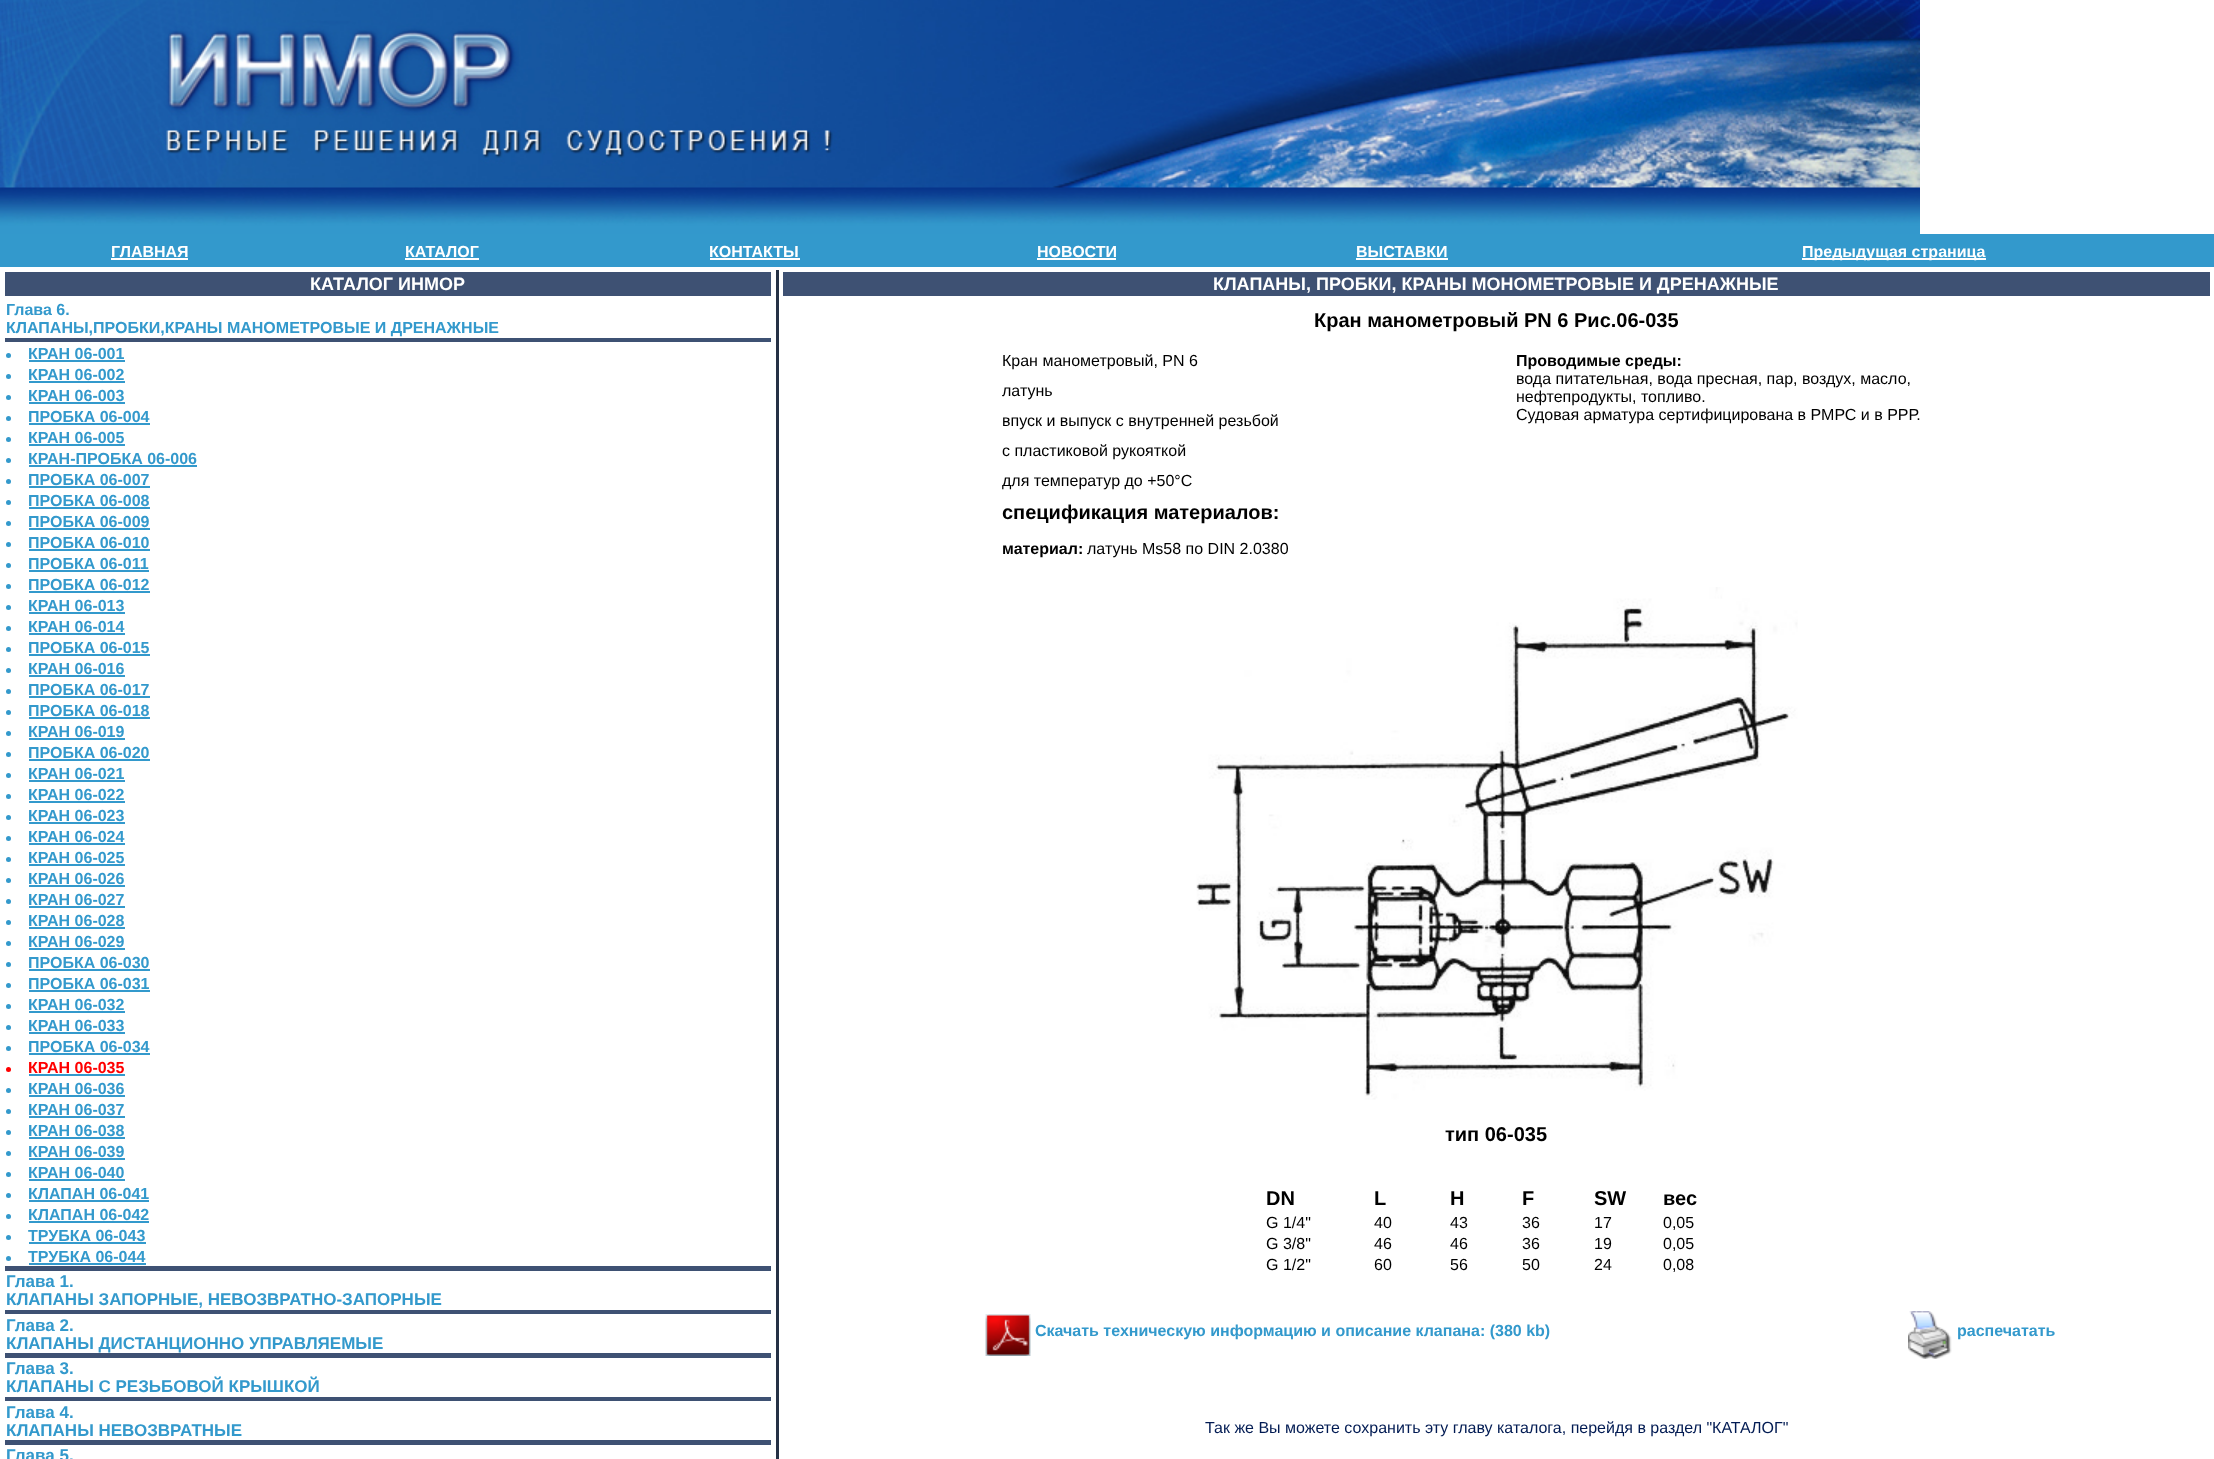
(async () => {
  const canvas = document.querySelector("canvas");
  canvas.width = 2214;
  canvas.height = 1459;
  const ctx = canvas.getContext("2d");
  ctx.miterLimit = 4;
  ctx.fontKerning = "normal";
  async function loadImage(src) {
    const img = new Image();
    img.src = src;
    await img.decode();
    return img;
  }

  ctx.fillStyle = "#ffffff";
  ctx.fillRect(0, 0, 2214, 1459);
  ctx.drawImage(await loadImage("img/1.png"), 0, 0, 1920, 234);
  for (const [x, y, w, h, color] of [
    [0, 234, 2214, 33, "#3399cc"],
    [111, 258, 77, 2, "#ffffff"],
    [405, 258, 74, 2, "#ffffff"],
    [710, 258, 90, 2, "#ffffff"],
    [1037, 258, 79, 2, "#ffffff"],
    [1356, 258, 92, 2, "#ffffff"],
    [1802, 258, 184, 2, "#ffffff"],
    [5, 272, 766, 24, "#3e5173"],
    [5, 338, 766, 4, "#3e5173"],
  ]) {
    ctx.fillStyle = color;
    ctx.fillRect(x, y, w, h);
  }
  ctx.fillStyle = "#3399cc";
  ctx.beginPath();
  ctx.arc(8.5, 355.5, 2.5, 0, Math.PI * 2);
  ctx.fill();
  ctx.fillRect(29, 360, 96, 2);
  ctx.beginPath();
  ctx.arc(8.5, 376.5, 2.5, 0, Math.PI * 2);
  ctx.fill();
  ctx.fillRect(29, 381, 96, 2);
  ctx.beginPath();
  ctx.arc(8.5, 397.5, 2.5, 0, Math.PI * 2);
  ctx.fill();
  ctx.fillRect(29, 402, 96, 2);
  ctx.beginPath();
  ctx.arc(8.5, 418.5, 2.5, 0, Math.PI * 2);
  ctx.fill();
  ctx.fillRect(29, 423, 121, 2);
  ctx.beginPath();
  ctx.arc(8.5, 439.5, 2.5, 0, Math.PI * 2);
  ctx.fill();
  ctx.fillRect(29, 444, 96, 2);
  ctx.beginPath();
  ctx.arc(8.5, 460.5, 2.5, 0, Math.PI * 2);
  ctx.fill();
  ctx.fillRect(29, 465, 168, 2);
  ctx.beginPath();
  ctx.arc(8.5, 481.5, 2.5, 0, Math.PI * 2);
  ctx.fill();
  ctx.fillRect(29, 486, 121, 2);
  ctx.beginPath();
  ctx.arc(8.5, 502.5, 2.5, 0, Math.PI * 2);
  ctx.fill();
  ctx.fillRect(29, 507, 121, 2);
  ctx.beginPath();
  ctx.arc(8.5, 523.5, 2.5, 0, Math.PI * 2);
  ctx.fill();
  ctx.fillRect(29, 528, 121, 2);
  ctx.beginPath();
  ctx.arc(8.5, 544.5, 2.5, 0, Math.PI * 2);
  ctx.fill();
  ctx.fillRect(29, 549, 121, 2);
  ctx.beginPath();
  ctx.arc(8.5, 565.5, 2.5, 0, Math.PI * 2);
  ctx.fill();
  ctx.fillRect(29, 570, 120, 2);
  ctx.beginPath();
  ctx.arc(8.5, 586.5, 2.5, 0, Math.PI * 2);
  ctx.fill();
  ctx.fillRect(29, 591, 121, 2);
  ctx.beginPath();
  ctx.arc(8.5, 607.5, 2.5, 0, Math.PI * 2);
  ctx.fill();
  ctx.fillRect(29, 612, 96, 2);
  ctx.beginPath();
  ctx.arc(8.5, 628.5, 2.5, 0, Math.PI * 2);
  ctx.fill();
  ctx.fillRect(29, 633, 96, 2);
  ctx.beginPath();
  ctx.arc(8.5, 649.5, 2.5, 0, Math.PI * 2);
  ctx.fill();
  ctx.fillRect(29, 654, 121, 2);
  ctx.beginPath();
  ctx.arc(8.5, 670.5, 2.5, 0, Math.PI * 2);
  ctx.fill();
  ctx.fillRect(29, 675, 96, 2);
  ctx.beginPath();
  ctx.arc(8.5, 691.5, 2.5, 0, Math.PI * 2);
  ctx.fill();
  ctx.fillRect(29, 696, 121, 2);
  ctx.beginPath();
  ctx.arc(8.5, 712.5, 2.5, 0, Math.PI * 2);
  ctx.fill();
  ctx.fillRect(29, 717, 121, 2);
  ctx.beginPath();
  ctx.arc(8.5, 733.5, 2.5, 0, Math.PI * 2);
  ctx.fill();
  ctx.fillRect(29, 738, 96, 2);
  ctx.beginPath();
  ctx.arc(8.5, 754.5, 2.5, 0, Math.PI * 2);
  ctx.fill();
  ctx.fillRect(29, 759, 121, 2);
  ctx.beginPath();
  ctx.arc(8.5, 775.5, 2.5, 0, Math.PI * 2);
  ctx.fill();
  ctx.fillRect(29, 780, 96, 2);
  ctx.beginPath();
  ctx.arc(8.5, 796.5, 2.5, 0, Math.PI * 2);
  ctx.fill();
  ctx.fillRect(29, 801, 96, 2);
  ctx.beginPath();
  ctx.arc(8.5, 817.5, 2.5, 0, Math.PI * 2);
  ctx.fill();
  ctx.fillRect(29, 822, 96, 2);
  ctx.beginPath();
  ctx.arc(8.5, 838.5, 2.5, 0, Math.PI * 2);
  ctx.fill();
  ctx.fillRect(29, 843, 96, 2);
  ctx.beginPath();
  ctx.arc(8.5, 859.5, 2.5, 0, Math.PI * 2);
  ctx.fill();
  ctx.fillRect(29, 864, 96, 2);
  ctx.beginPath();
  ctx.arc(8.5, 880.5, 2.5, 0, Math.PI * 2);
  ctx.fill();
  ctx.fillRect(29, 885, 96, 2);
  ctx.beginPath();
  ctx.arc(8.5, 901.5, 2.5, 0, Math.PI * 2);
  ctx.fill();
  ctx.fillRect(29, 906, 96, 2);
  ctx.beginPath();
  ctx.arc(8.5, 922.5, 2.5, 0, Math.PI * 2);
  ctx.fill();
  ctx.fillRect(29, 927, 96, 2);
  ctx.beginPath();
  ctx.arc(8.5, 943.5, 2.5, 0, Math.PI * 2);
  ctx.fill();
  ctx.fillRect(29, 948, 96, 2);
  ctx.beginPath();
  ctx.arc(8.5, 964.5, 2.5, 0, Math.PI * 2);
  ctx.fill();
  ctx.fillRect(29, 969, 121, 2);
  ctx.beginPath();
  ctx.arc(8.5, 985.5, 2.5, 0, Math.PI * 2);
  ctx.fill();
  ctx.fillRect(29, 990, 121, 2);
  ctx.beginPath();
  ctx.arc(8.5, 1006.5, 2.5, 0, Math.PI * 2);
  ctx.fill();
  ctx.fillRect(29, 1011, 96, 2);
  ctx.beginPath();
  ctx.arc(8.5, 1027.5, 2.5, 0, Math.PI * 2);
  ctx.fill();
  ctx.fillRect(29, 1032, 96, 2);
  ctx.beginPath();
  ctx.arc(8.5, 1048.5, 2.5, 0, Math.PI * 2);
  ctx.fill();
  ctx.fillRect(29, 1053, 121, 2);
  ctx.fillStyle = "#ff0000";
  ctx.beginPath();
  ctx.arc(8.5, 1069.5, 2.5, 0, Math.PI * 2);
  ctx.fill();
  ctx.fillStyle = "#3399cc";
  ctx.fillRect(29, 1074, 96, 2);
  ctx.beginPath();
  ctx.arc(8.5, 1090.5, 2.5, 0, Math.PI * 2);
  ctx.fill();
  ctx.fillRect(29, 1095, 96, 2);
  ctx.beginPath();
  ctx.arc(8.5, 1111.5, 2.5, 0, Math.PI * 2);
  ctx.fill();
  ctx.fillRect(29, 1116, 96, 2);
  ctx.beginPath();
  ctx.arc(8.5, 1132.5, 2.5, 0, Math.PI * 2);
  ctx.fill();
  ctx.fillRect(29, 1137, 96, 2);
  ctx.beginPath();
  ctx.arc(8.5, 1153.5, 2.5, 0, Math.PI * 2);
  ctx.fill();
  ctx.fillRect(29, 1158, 96, 2);
  ctx.beginPath();
  ctx.arc(8.5, 1174.5, 2.5, 0, Math.PI * 2);
  ctx.fill();
  ctx.fillRect(29, 1179, 96, 2);
  ctx.beginPath();
  ctx.arc(8.5, 1195.5, 2.5, 0, Math.PI * 2);
  ctx.fill();
  ctx.fillRect(29, 1200, 120, 2);
  ctx.beginPath();
  ctx.arc(8.5, 1216.5, 2.5, 0, Math.PI * 2);
  ctx.fill();
  ctx.fillRect(29, 1221, 120, 2);
  ctx.beginPath();
  ctx.arc(8.5, 1237.5, 2.5, 0, Math.PI * 2);
  ctx.fill();
  ctx.fillRect(29, 1242, 117, 2);
  ctx.beginPath();
  ctx.arc(8.5, 1258.5, 2.5, 0, Math.PI * 2);
  ctx.fill();
  for (const [x, y, w, h, color] of [
    [29, 1263, 117, 2, "#3399cc"],
    [5, 1266, 766, 5, "#3e5173"],
    [5, 1310, 766, 4, "#3e5173"],
    [5, 1353, 766, 5, "#3e5173"],
    [5, 1397, 766, 4, "#3e5173"],
    [5, 1440, 766, 5, "#3e5173"],
    [776, 270, 3, 1189, "#253145"],
    [783, 272, 1427, 24, "#3e5173"],
  ]) {
    ctx.fillStyle = color;
    ctx.fillRect(x, y, w, h);
  }
  ctx.drawImage(await loadImage("img/2.png"), 1196, 587, 602, 513);
  ctx.drawImage(await loadImage("img/3.png"), 985, 1314, 46, 42);
  ctx.drawImage(await loadImage("img/4.png"), 1908, 1311, 44, 48);
  ctx.font = "bold 16px Liberation Sans";
  ctx.fillStyle = "#ffffff";
  for (const [text, x, y] of [
    ["ГЛАВНАЯ", 111, 257],
    ["КАТАЛОГ", 405, 257],
    ["КОНТАКТЫ", 709, 257],
    ["НОВОСТИ", 1037, 257],
    ["ВЫСТАВКИ", 1356, 257],
    ["Предыдущая страница", 1802, 257],
  ]) {
    ctx.fillText(text, x, y);
  }
  ctx.font = "bold 18px Liberation Sans";
  ctx.fillText("КАТАЛОГ ИНМОР", 310, 290);
  ctx.font = "bold 16px Liberation Sans";
  ctx.fillStyle = "#3399cc";
  for (const [text, x, y] of [
    ["Глава 6.", 6, 315],
    ["КЛАПАНЫ,ПРОБКИ,КРАНЫ МАНОМЕТРОВЫЕ И ДРЕНАЖНЫЕ", 6, 333],
    ["КРАН 06-001", 28, 359],
    ["КРАН 06-002", 28, 380],
    ["КРАН 06-003", 28, 401],
    ["ПРОБКА 06-004", 28, 422],
    ["КРАН 06-005", 28, 443],
    ["КРАН-ПРОБКА 06-006", 28, 464],
    ["ПРОБКА 06-007", 28, 485],
    ["ПРОБКА 06-008", 28, 506],
    ["ПРОБКА 06-009", 28, 527],
    ["ПРОБКА 06-010", 28, 548],
    ["ПРОБКА 06-011", 28, 569],
    ["ПРОБКА 06-012", 28, 590],
    ["КРАН 06-013", 28, 611],
    ["КРАН 06-014", 28, 632],
    ["ПРОБКА 06-015", 28, 653],
    ["КРАН 06-016", 28, 674],
    ["ПРОБКА 06-017", 28, 695],
    ["ПРОБКА 06-018", 28, 716],
    ["КРАН 06-019", 28, 737],
    ["ПРОБКА 06-020", 28, 758],
    ["КРАН 06-021", 28, 779],
    ["КРАН 06-022", 28, 800],
    ["КРАН 06-023", 28, 821],
    ["КРАН 06-024", 28, 842],
    ["КРАН 06-025", 28, 863],
    ["КРАН 06-026", 28, 884],
    ["КРАН 06-027", 28, 905],
    ["КРАН 06-028", 28, 926],
    ["КРАН 06-029", 28, 947],
    ["ПРОБКА 06-030", 28, 968],
    ["ПРОБКА 06-031", 28, 989],
    ["КРАН 06-032", 28, 1010],
    ["КРАН 06-033", 28, 1031],
    ["ПРОБКА 06-034", 28, 1052],
  ]) {
    ctx.fillText(text, x, y);
  }
  ctx.fillStyle = "#ff0000";
  ctx.fillText("КРАН 06-035", 28, 1073);
  ctx.fillStyle = "#3399cc";
  for (const [text, x, y] of [
    ["КРАН 06-036", 28, 1094],
    ["КРАН 06-037", 28, 1115],
    ["КРАН 06-038", 28, 1136],
    ["КРАН 06-039", 28, 1157],
    ["КРАН 06-040", 28, 1178],
    ["КЛАПАН 06-041", 28, 1199],
    ["КЛАПАН 06-042", 28, 1220],
    ["ТРУБКА 06-043", 28, 1241],
    ["ТРУБКА 06-044", 28, 1262],
  ]) {
    ctx.fillText(text, x, y);
  }
  ctx.font = "bold 17px Liberation Sans";
  for (const [text, x, y] of [
    ["Глава 1.", 6, 1287],
    ["КЛАПАНЫ ЗАПОРНЫЕ, НЕВОЗВРАТНО-ЗАПОРНЫЕ", 6, 1305],
    ["Глава 2.", 6, 1331],
    ["КЛАПАНЫ ДИСТАНЦИОННО УПРАВЛЯЕМЫЕ", 6, 1349],
    ["Глава 3.", 6, 1374],
    ["КЛАПАНЫ С РЕЗЬБОВОЙ КРЫШКОЙ", 6, 1392],
    ["Глава 4.", 6, 1418],
    ["КЛАПАНЫ НЕВОЗВРАТНЫЕ", 6, 1436],
    ["Глава 5.", 6, 1461],
  ]) {
    ctx.fillText(text, x, y);
  }
  ctx.font = "bold 18px Liberation Sans";
  ctx.fillStyle = "#ffffff";
  ctx.fillText("КЛАПАНЫ, ПРОБКИ, КРАНЫ МОНОМЕТРОВЫЕ И ДРЕНАЖНЫЕ", 1213, 290);
  ctx.font = "bold 20px Liberation Sans";
  ctx.fillStyle = "#000000";
  ctx.fillText("Кран манометровый PN 6 Рис.06-035", 1314, 327);
  ctx.font = "16px Liberation Sans";
  ctx.fillText("Кран манометровый, PN 6", 1002, 366);
  ctx.font = "bold 16px Liberation Sans";
  ctx.fillText("Проводимые среды:", 1516, 366);
  ctx.font = "16px Liberation Sans";
  for (const [text, x, y] of [
    ["вода питательная, вода пресная, пар, воздух, масло,", 1516, 384],
    ["нефтепродукты, топливо.", 1516, 402],
    ["Судовая арматура сертифицирована в РМРС и в РРР.", 1516, 420],
    ["латунь", 1002, 396],
    ["впуск и выпуск с внутренней резьбой", 1002, 426],
    ["с пластиковой рукояткой", 1002, 456],
    ["для температур до +50°С", 1002, 486],
  ]) {
    ctx.fillText(text, x, y);
  }
  ctx.font = "bold 20px Liberation Sans";
  ctx.fillText("спецификация материалов:", 1002, 519);
  ctx.font = "bold 16px Liberation Sans";
  ctx.fillText("материал:", 1002, 554);
  ctx.font = "16px Liberation Sans";
  ctx.fillText("латунь Ms58 по DIN 2.0380", 1087, 554);
  ctx.font = "bold 20px Liberation Sans";
  for (const [text, x, y] of [
    ["тип 06-035", 1445, 1141],
    ["DN", 1266, 1205],
    ["L", 1374, 1205],
    ["H", 1450, 1205],
    ["F", 1522, 1205],
    ["SW", 1594, 1205],
    ["вес", 1663, 1205],
  ]) {
    ctx.fillText(text, x, y);
  }
  ctx.font = "16px Liberation Sans";
  for (const [text, x, y] of [
    ["G 1/4\"", 1266, 1228],
    ["40", 1374, 1228],
    ["43", 1450, 1228],
    ["36", 1522, 1228],
    ["17", 1594, 1228],
    ["0,05", 1663, 1228],
    ["G 3/8\"", 1266, 1249],
    ["46", 1374, 1249],
    ["46", 1450, 1249],
    ["36", 1522, 1249],
    ["19", 1594, 1249],
    ["0,05", 1663, 1249],
    ["G 1/2\"", 1266, 1270],
    ["60", 1374, 1270],
    ["56", 1450, 1270],
    ["50", 1522, 1270],
    ["24", 1594, 1270],
    ["0,08", 1663, 1270],
  ]) {
    ctx.fillText(text, x, y);
  }
  ctx.font = "bold 16px Liberation Sans";
  ctx.fillStyle = "#3399cc";
  ctx.fillText("Скачать техническую информацию и описание клапана: (380 kb)", 1035, 1336);
  ctx.fillText("распечатать", 1957, 1336);
  ctx.font = "16px Liberation Sans";
  ctx.fillStyle = "#021b53";
  ctx.fillText("Так же Вы можете сохранить эту главу каталога, перейдя в раздел \"КАТАЛОГ\"", 1205, 1433);
})();
